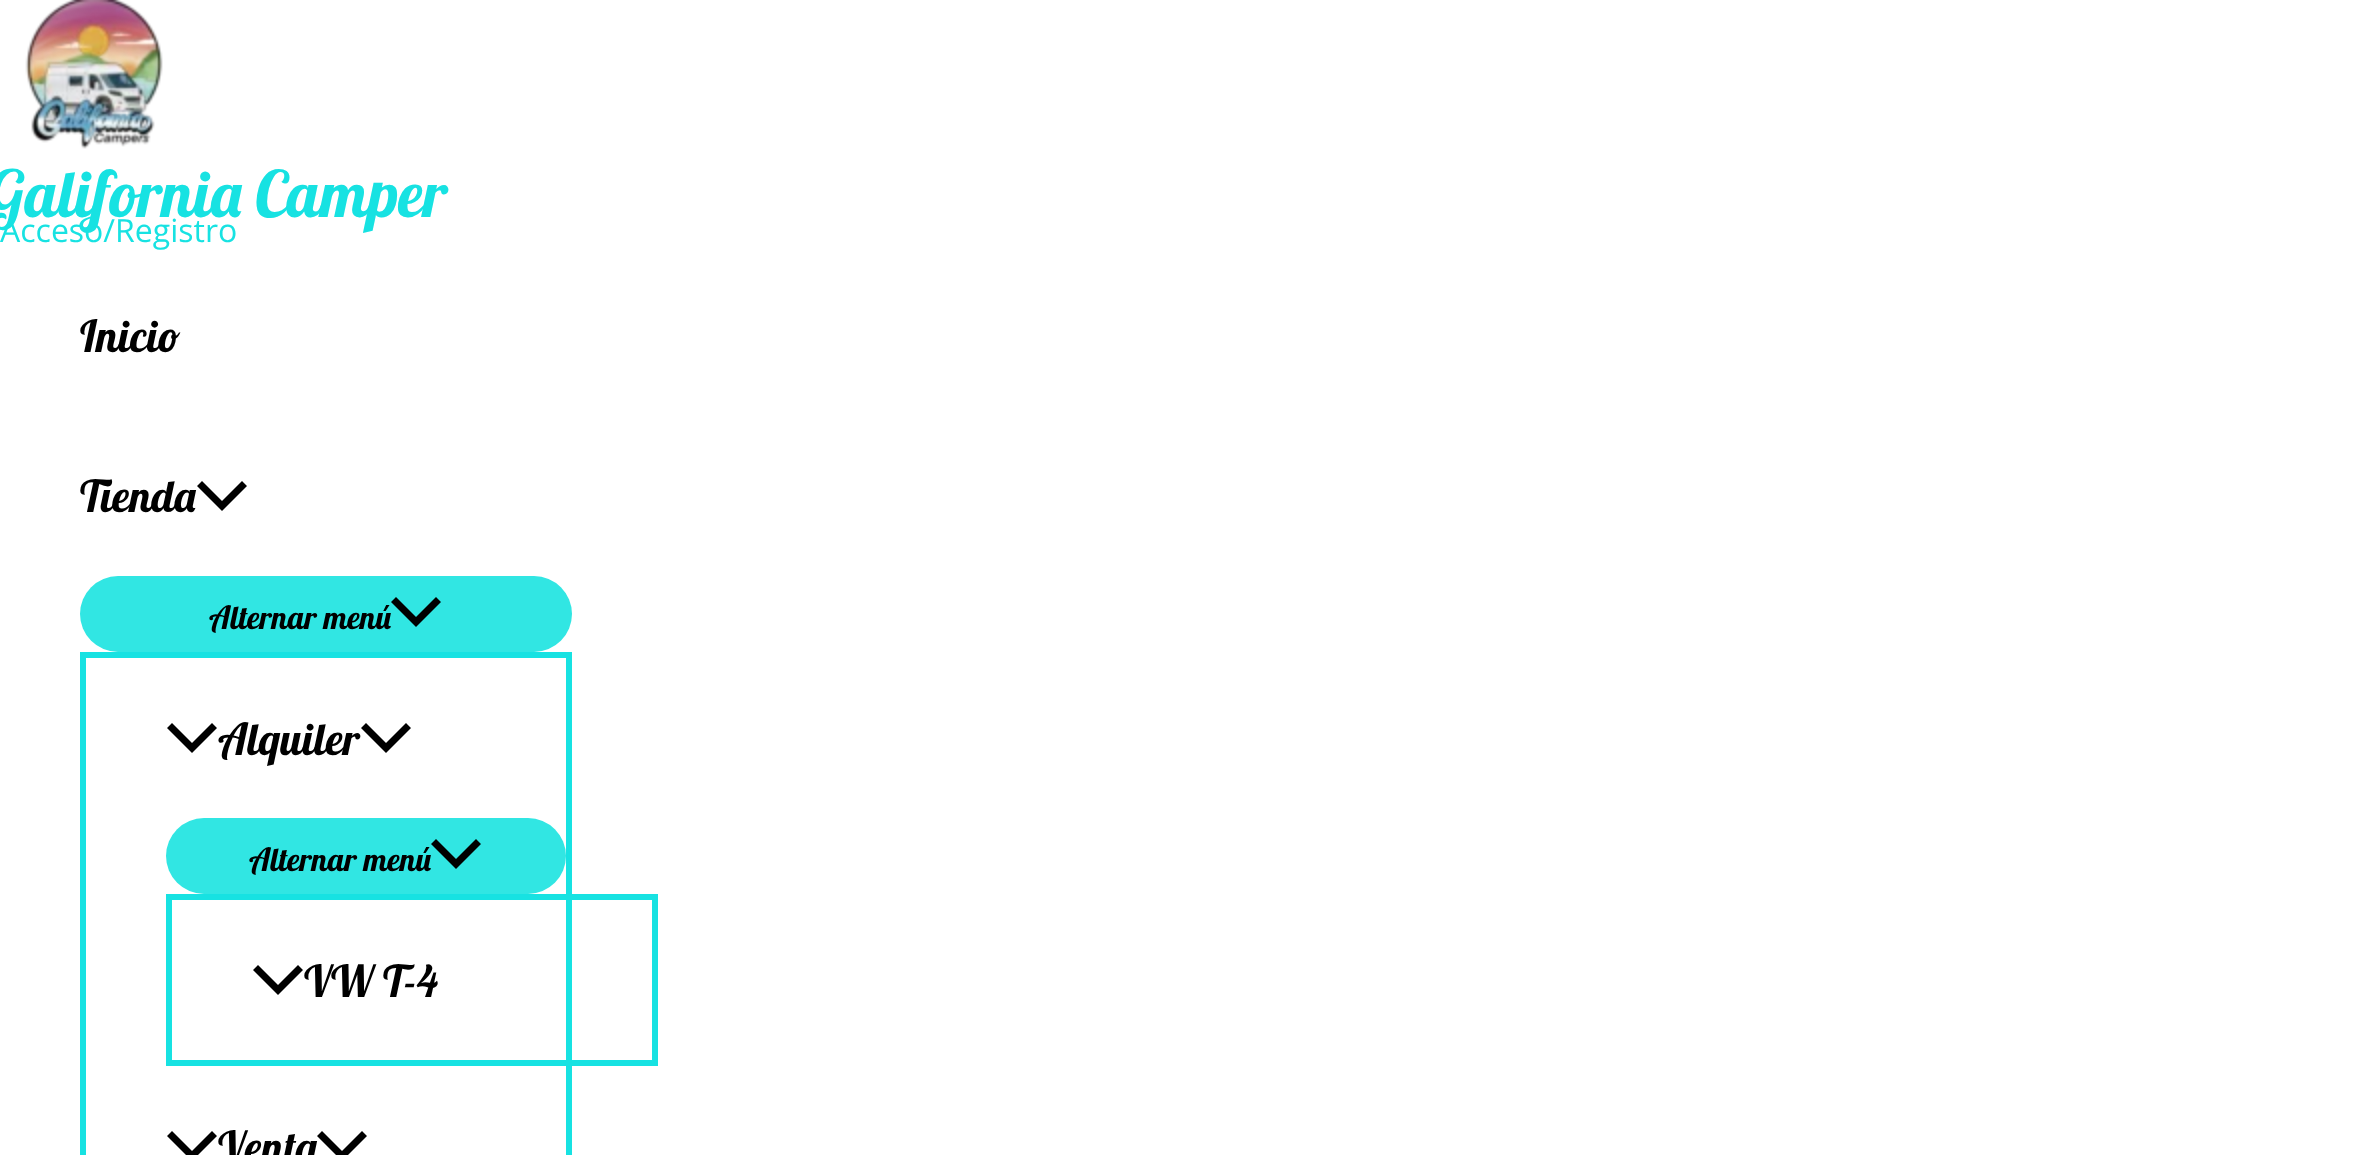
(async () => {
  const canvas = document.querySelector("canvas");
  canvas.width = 2363;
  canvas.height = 1155;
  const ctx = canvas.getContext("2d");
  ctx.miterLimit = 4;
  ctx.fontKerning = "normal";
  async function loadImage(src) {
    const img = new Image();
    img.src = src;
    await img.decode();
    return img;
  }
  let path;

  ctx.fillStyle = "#ffffff";
  ctx.fillRect(0, 0, 2363, 1155);
  ctx.drawImage(await loadImage("img/1.png"), 25, 0, 138, 149);
  ctx.fillStyle = "#000000";
  path = new Path2D("M197 486L222 511L247 486L242 481L222 501L202 481Z");
  ctx.fill(path);
  ctx.fillStyle = "#31e6e3";
  ctx.beginPath();
  ctx.roundRect(80, 576, 492, 76, 38);
  ctx.fill();
  ctx.fillStyle = "#000000";
  path = new Path2D("M391 602L416 627L441 602L436 597L416 617L396 597Z");
  ctx.fill(path);
  ctx.strokeStyle = "#17e2e2";
  ctx.lineWidth = 6;
  ctx.strokeRect(83, 655, 486, 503);
  path = new Path2D("M167 728L192 753L217 728L212 723L192 743L172 723Z");
  ctx.fill(path);
  path = new Path2D("M361 728L386 753L411 728L406 723L386 743L366 723Z");
  ctx.fill(path);
  ctx.fillStyle = "#31e6e3";
  ctx.beginPath();
  ctx.roundRect(166, 818, 400, 76, 38);
  ctx.fill();
  ctx.fillStyle = "#000000";
  path = new Path2D("M431 844L456 869L481 844L476 839L456 859L436 839Z");
  ctx.fill(path);
  ctx.strokeRect(169, 897, 486, 166);
  path = new Path2D("M253 970L278 995L303 970L298 965L278 985L258 965Z");
  ctx.fill(path);
  path = new Path2D("M167 1136L192 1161L217 1136L212 1131L192 1151L172 1131Z");
  ctx.fill(path);
  path = new Path2D("M317 1136L342 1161L367 1136L362 1131L342 1151L322 1131Z");
  ctx.fill(path);
  ctx.font = "64px Lobster";
  ctx.fillStyle = "#17e2e2";
  ctx.fillText("Galifornia Camper", -12, 217);
  ctx.font = "32px Open Sans";
  ctx.fillText("Acceso/Registro", 0, 242);
  ctx.font = "44px Lobster";
  ctx.fillStyle = "#000000";
  ctx.fillText("Inicio", 80, 352);
  ctx.fillText("Tienda", 80, 512);
  ctx.font = "32px Lobster";
  ctx.fillText("Alternar menú", 209, 629);
  ctx.font = "44px Lobster";
  ctx.fillText("Alquiler", 218, 755);
  ctx.font = "32px Lobster";
  ctx.fillText("Alternar menú", 249, 871);
  ctx.font = "44px Lobster";
  ctx.fillText("VW T-4", 304, 997);
  ctx.fillText("Venta", 218, 1163);
})();
